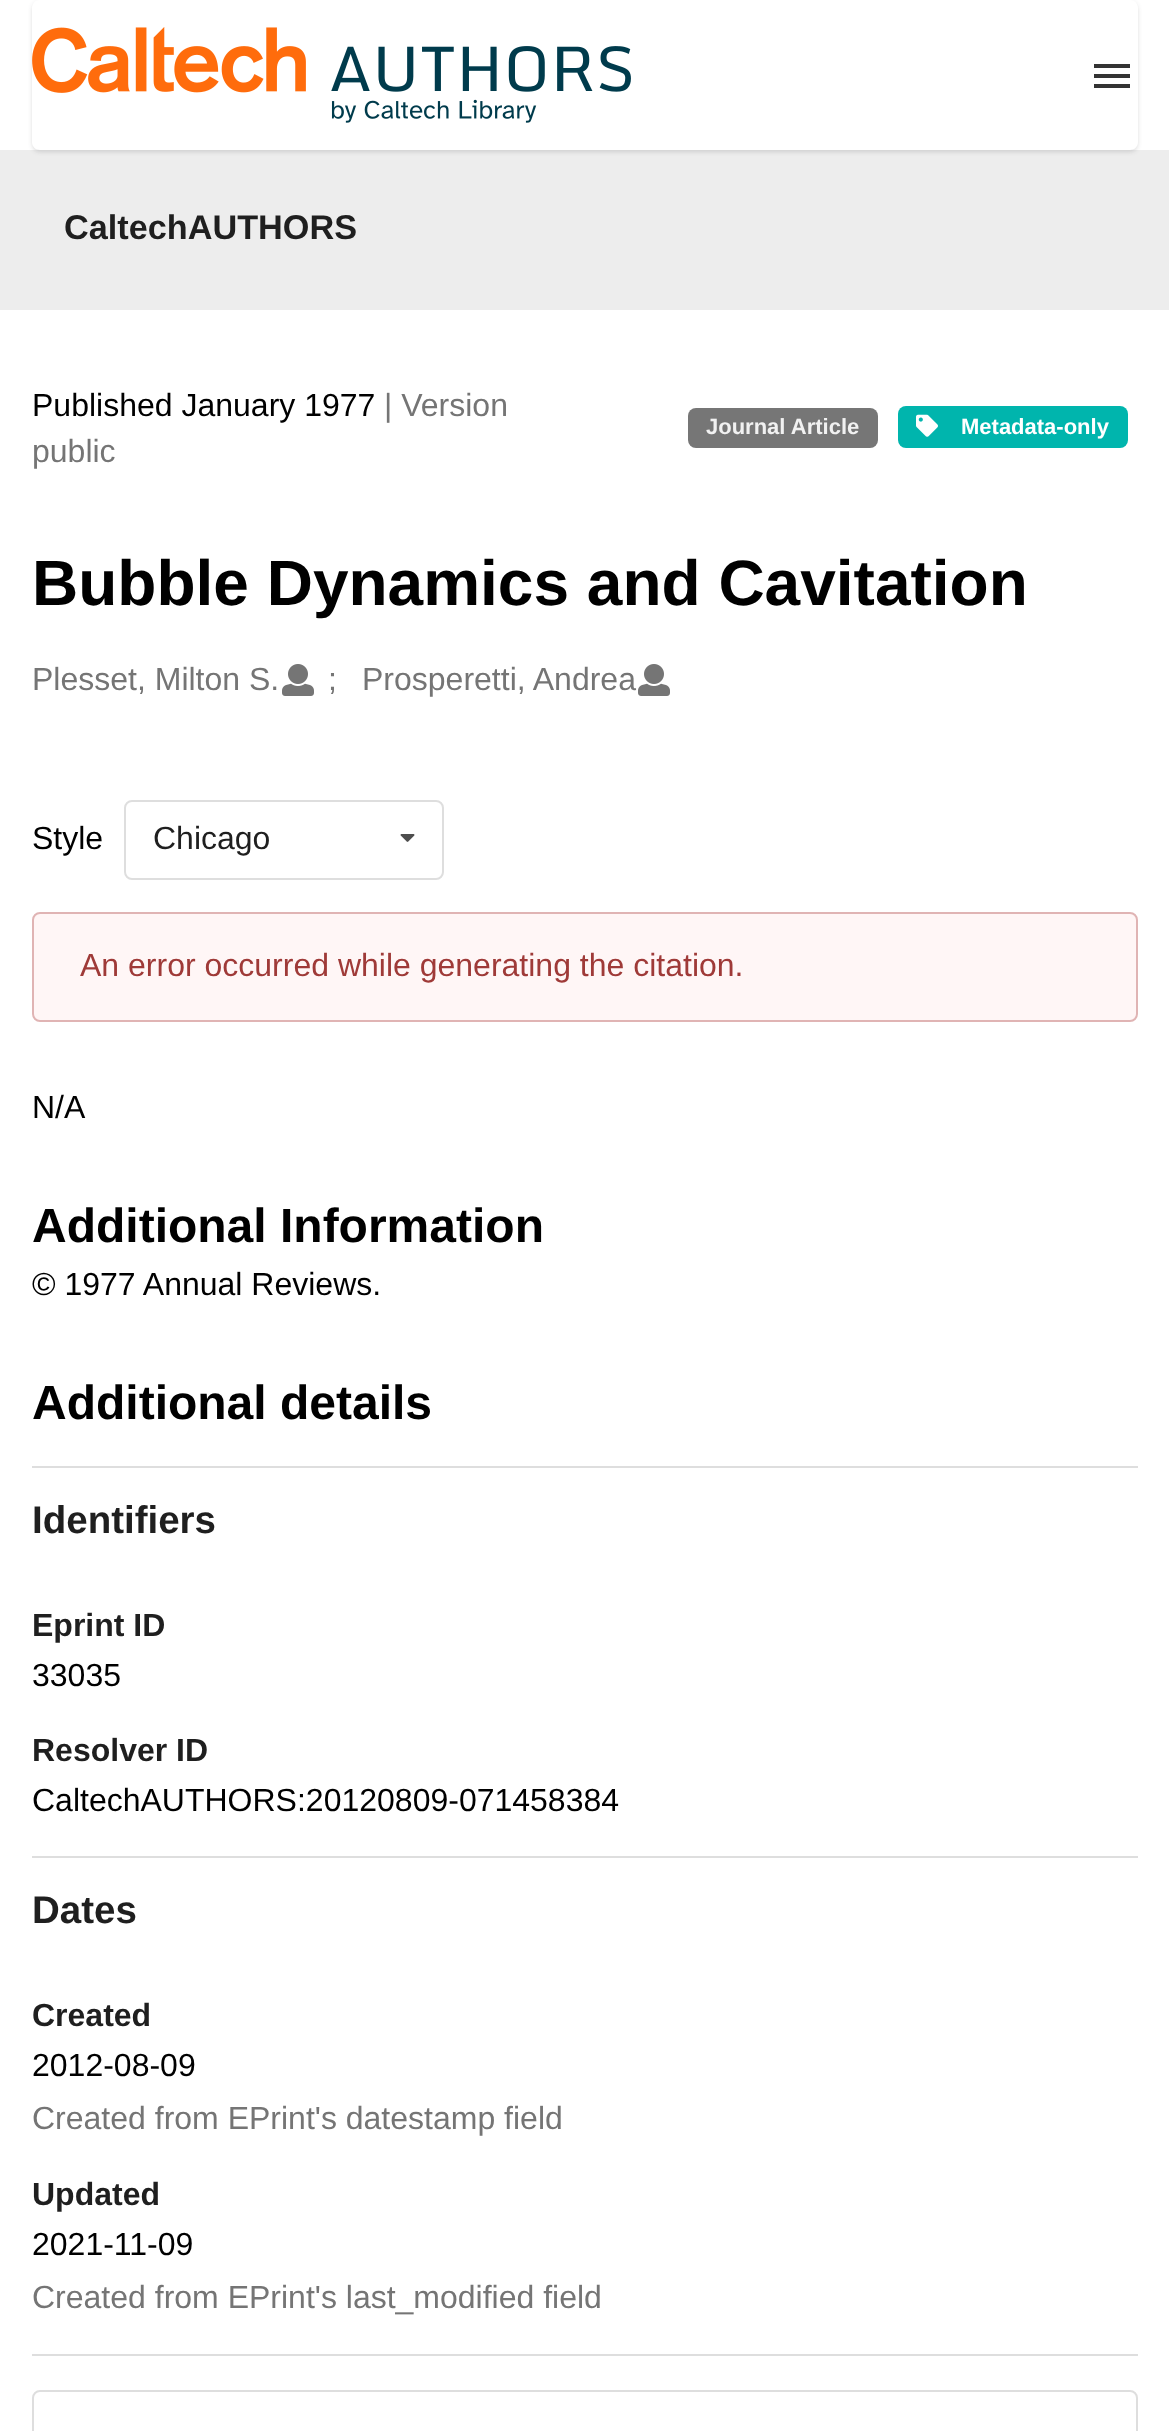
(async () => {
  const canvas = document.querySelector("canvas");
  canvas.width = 1169;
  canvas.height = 2431;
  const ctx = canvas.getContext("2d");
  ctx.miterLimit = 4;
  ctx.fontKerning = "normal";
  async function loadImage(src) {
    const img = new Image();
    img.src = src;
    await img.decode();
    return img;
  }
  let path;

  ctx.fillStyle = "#ffffff";
  ctx.fillRect(0, 0, 1169, 2431);
  ctx.fillStyle = "#ededed";
  ctx.fillRect(0, 150, 1169, 160);
  ctx.save();
  path = new Path2D("M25 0H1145V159H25ZM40 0H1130C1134.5 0 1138 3.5 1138 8V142C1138 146.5 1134.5 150 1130 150H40C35.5 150 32 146.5 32 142V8C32 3.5 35.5 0 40 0Z");
  ctx.clip(path, "evenodd");
  ctx.fillStyle = "rgba(34, 36, 38, 0.15)";
  ctx.filter = "blur(2px)";
  ctx.beginPath();
  ctx.roundRect(32, 2, 1106, 150, 8);
  ctx.fill();
  ctx.filter = "none";
  ctx.restore();
  ctx.drawImage(await loadImage("img/1.png"), 32, 27, 599, 96);
  for (const [x, y, w, h, color] of [
    [1094, 74, 36, 4, "#333333"],
    [1094, 64, 36, 4, "#333333"],
    [1094, 84, 36, 4, "#333333"],
  ]) {
    ctx.fillStyle = color;
    ctx.fillRect(x, y, w, h);
  }
  ctx.fillStyle = "#767676";
  ctx.beginPath();
  ctx.roundRect(688, 408, 190, 40, 8);
  ctx.fill();
  ctx.fillStyle = "#00b5ad";
  ctx.beginPath();
  ctx.roundRect(898, 406, 230, 42, 8);
  ctx.fill();
  ctx.drawImage(await loadImage("img/2.png"), 916, 414, 22, 23);
  ctx.drawImage(await loadImage("img/3.png"), 282, 664, 32, 32);
  ctx.drawImage(await loadImage("img/3.png"), 638, 664, 32, 32);
  ctx.beginPath();
  ctx.roundRect(125, 801, 318, 78, 7);
  ctx.strokeStyle = "#dedede";
  ctx.lineWidth = 2;
  ctx.stroke();
  ctx.drawImage(await loadImage("img/4.png"), 400, 834, 15, 8);
  ctx.fillStyle = "#fff6f6";
  ctx.beginPath();
  ctx.roundRect(33, 913, 1104, 108, 7);
  ctx.fill();
  ctx.strokeStyle = "#e0b4b4";
  ctx.stroke();
  for (const [x, y, w, h, color] of [
    [32, 1466, 1106, 2, "#dedede"],
    [32, 1856, 1106, 2, "#dedede"],
    [32, 2354, 1106, 2, "#dedede"],
  ]) {
    ctx.fillStyle = color;
    ctx.fillRect(x, y, w, h);
  }
  ctx.beginPath();
  ctx.roundRect(33, 2391, 1104, 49, 7);
  ctx.strokeStyle = "#dedede";
  ctx.stroke();
  ctx.font = "bold 34.25px Liberation Sans";
  ctx.fillStyle = "#1f1f1f";
  ctx.fillText("CaltechAUTHORS", 64, 239);
  ctx.font = "32px Liberation Sans";
  ctx.fillStyle = "#000000";
  ctx.fillText("Published January 1977", 32, 416);
  ctx.fillStyle = "#757575";
  ctx.fillText("| Version", 384, 416);
  ctx.fillText("public", 32, 462);
  ctx.font = "bold 22px Liberation Sans";
  ctx.fillStyle = "#f1f1f1";
  ctx.fillText("Journal Article", 706, 434);
  ctx.fillStyle = "#ffffff";
  ctx.fillText("Metadata-only", 961, 434);
  ctx.font = "bold 64px Liberation Sans";
  ctx.fillStyle = "#000000";
  ctx.fillText("Bubble Dynamics and Cavitation", 32, 605);
  ctx.font = "32px Liberation Sans";
  ctx.fillStyle = "#757575";
  for (const [text, x, y] of [
    ["Plesset, Milton S.", 32, 690],
    [";", 328, 690],
    ["Prosperetti, Andrea", 362, 690],
  ]) {
    ctx.fillText(text, x, y);
  }
  ctx.fillStyle = "#000000";
  ctx.fillText("Style", 32, 849);
  ctx.fillStyle = "#1f1f1f";
  ctx.fillText("Chicago", 153, 849);
  ctx.fillStyle = "#9f3a38";
  ctx.fillText("An error occurred while generating the citation.", 80, 976);
  ctx.fillStyle = "#000000";
  ctx.fillText("N/A", 32, 1118);
  ctx.font = "bold 48px Liberation Sans";
  ctx.fillText("Additional Information", 32, 1242);
  ctx.font = "32px Liberation Sans";
  ctx.fillText("© 1977 Annual Reviews.", 32, 1295);
  ctx.font = "bold 48px Liberation Sans";
  ctx.fillText("Additional details", 32, 1419);
  ctx.font = "bold 38.5px Liberation Sans";
  ctx.fillStyle = "#1f1f1f";
  ctx.fillText("Identifiers", 32, 1533);
  ctx.font = "bold 32px Liberation Sans";
  ctx.fillText("Eprint ID", 32, 1636);
  ctx.font = "32px Liberation Sans";
  ctx.fillStyle = "#000000";
  ctx.fillText("33035", 32, 1686);
  ctx.font = "bold 32px Liberation Sans";
  ctx.fillStyle = "#1f1f1f";
  ctx.fillText("Resolver ID", 32, 1761);
  ctx.font = "32px Liberation Sans";
  ctx.fillStyle = "#000000";
  ctx.fillText("CaltechAUTHORS:20120809-071458384", 32, 1811);
  ctx.font = "bold 38.5px Liberation Sans";
  ctx.fillStyle = "#1f1f1f";
  ctx.fillText("Dates", 32, 1923);
  ctx.font = "bold 32px Liberation Sans";
  ctx.fillText("Created", 32, 2026);
  ctx.font = "32px Liberation Sans";
  ctx.fillStyle = "#000000";
  ctx.fillText("2012-08-09", 32, 2076);
  ctx.fillStyle = "#757575";
  ctx.fillText("Created from EPrint's datestamp field", 32, 2129);
  ctx.font = "bold 32px Liberation Sans";
  ctx.fillStyle = "#1f1f1f";
  ctx.fillText("Updated", 32, 2205);
  ctx.font = "32px Liberation Sans";
  ctx.fillStyle = "#000000";
  ctx.fillText("2021-11-09", 32, 2255);
  ctx.fillStyle = "#757575";
  ctx.fillText("Created from EPrint's last_modified field", 32, 2308);
})();
